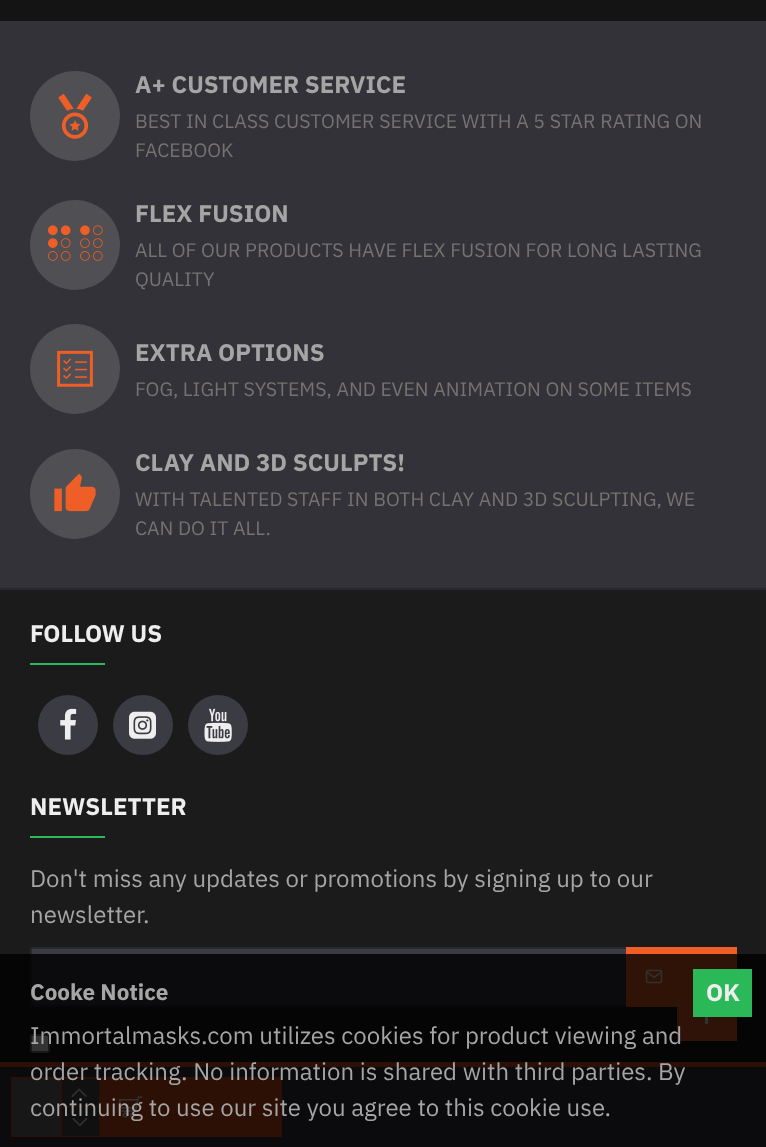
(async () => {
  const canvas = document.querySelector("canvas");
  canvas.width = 766;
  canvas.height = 1147;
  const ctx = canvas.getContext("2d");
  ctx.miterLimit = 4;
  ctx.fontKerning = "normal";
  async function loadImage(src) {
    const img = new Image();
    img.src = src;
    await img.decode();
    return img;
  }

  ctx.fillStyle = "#141414";
  ctx.fillRect(0, 0, 766, 1147);
  ctx.fillStyle = "#1b1b1b";
  ctx.fillRect(0, 590, 766, 472);
  ctx.fillStyle = "#323238";
  ctx.fillRect(0, 21, 766, 567);
  ctx.fillStyle = "#4f4f54";
  ctx.beginPath();
  ctx.arc(75, 116, 45, 0, Math.PI * 2);
  ctx.fill();
  ctx.drawImage(await loadImage("img/1.png"), 58, 93, 34, 46);
  ctx.beginPath();
  ctx.arc(75, 245, 45, 0, Math.PI * 2);
  ctx.fill();
  ctx.drawImage(await loadImage("img/2.png"), 48, 225, 55, 36);
  ctx.beginPath();
  ctx.arc(75, 369, 45, 0, Math.PI * 2);
  ctx.fill();
  ctx.drawImage(await loadImage("img/3.png"), 57, 350, 36, 37);
  ctx.beginPath();
  ctx.arc(75, 494, 45, 0, Math.PI * 2);
  ctx.fill();
  ctx.drawImage(await loadImage("img/4.png"), 54, 473, 42, 39);
  ctx.fillStyle = "#282832";
  ctx.fillRect(0, 588, 766, 2);
  ctx.fillStyle = "#2ab858";
  ctx.fillRect(30, 663, 75, 2);
  ctx.fillStyle = "#3b3b43";
  ctx.beginPath();
  ctx.arc(68, 725, 30, 0, Math.PI * 2);
  ctx.fill();
  ctx.drawImage(await loadImage("img/5.png"), 60, 708, 17, 32);
  ctx.beginPath();
  ctx.arc(143, 725, 30, 0, Math.PI * 2);
  ctx.fill();
  ctx.drawImage(await loadImage("img/6.png"), 129, 711, 27, 28);
  ctx.beginPath();
  ctx.arc(218, 725, 30, 0, Math.PI * 2);
  ctx.fill();
  ctx.drawImage(await loadImage("img/7.png"), 204, 708, 28, 34);
  ctx.fillStyle = "#2ab858";
  ctx.fillRect(30, 836, 75, 2);
  ctx.fillStyle = "#3b3b43";
  ctx.beginPath();
  ctx.roundRect(31, 948, 705, 58, 2);
  ctx.fill();
  ctx.strokeStyle = "#282832";
  ctx.lineWidth = 2;
  ctx.stroke();
  ctx.fillStyle = "#ee5e26";
  ctx.fillRect(626, 947, 111, 60);
  ctx.drawImage(await loadImage("img/8.png"), 645, 969, 18, 15);
  ctx.fillStyle = "#ffffff";
  ctx.beginPath();
  ctx.roundRect(31, 1035, 18, 17, 2);
  ctx.fill();
  ctx.strokeStyle = "#767676";
  ctx.stroke();
  ctx.fillStyle = "#3b3b43";
  ctx.fillRect(0, 1067, 766, 80);
  ctx.fillStyle = "#da511c";
  ctx.fillRect(0, 1062, 766, 5);
  ctx.strokeStyle = "#da511c";
  ctx.strokeRect(12, 1078, 88, 58);
  for (const [x, y, w, h, color] of [
    [12, 1079, 48, 57, "#767272"],
    [60, 1079, 2, 57, "#da511c"],
    [62, 1079, 37, 27, "#4f4f54"],
    [62, 1106, 37, 1, "#da511c"],
  ]) {
    ctx.fillStyle = color;
    ctx.fillRect(x, y, w, h);
  }
  ctx.drawImage(await loadImage("img/9.png"), 71, 1088, 16, 9);
  ctx.fillStyle = "#4f4f54";
  ctx.fillRect(62, 1107, 37, 29);
  ctx.drawImage(await loadImage("img/10.png"), 72, 1117, 16, 10);
  ctx.fillStyle = "#da511c";
  ctx.fillRect(101, 1077, 181, 60);
  ctx.drawImage(await loadImage("img/11.png"), 118, 1096, 25, 22);
  ctx.fillStyle = "#ec5e28";
  ctx.fillRect(677, 1007, 60, 34);
  ctx.drawImage(await loadImage("img/12.png"), 705, 1017, 3, 7);
  ctx.fillStyle = "rgba(0, 0, 0, 0.8)";
  ctx.fillRect(0, 954, 766, 193);
  ctx.fillStyle = "#2ab858";
  ctx.fillRect(693, 969, 59, 48);
  ctx.font = "bold 24px IBM Plex Sans";
  ctx.fillStyle = "#a5a5a5";
  ctx.fillText("A+ CUSTOMER SERVICE", 135, 93);
  ctx.font = "19.5px IBM Plex Sans";
  ctx.fillStyle = "#767272";
  ctx.fillText("BEST IN CLASS CUSTOMER SERVICE WITH A 5 STAR RATING ON", 135, 128);
  ctx.fillText("FACEBOOK", 135, 157);
  ctx.font = "bold 24px IBM Plex Sans";
  ctx.fillStyle = "#a5a5a5";
  ctx.fillText("FLEX FUSION", 135, 222);
  ctx.font = "19.5px IBM Plex Sans";
  ctx.fillStyle = "#767272";
  ctx.fillText("ALL OF OUR PRODUCTS HAVE FLEX FUSION FOR LONG LASTING", 135, 257);
  ctx.fillText("QUALITY", 135, 286);
  ctx.font = "bold 24px IBM Plex Sans";
  ctx.fillStyle = "#a5a5a5";
  ctx.fillText("EXTRA OPTIONS", 135, 361);
  ctx.font = "19.5px IBM Plex Sans";
  ctx.fillStyle = "#767272";
  ctx.fillText("FOG, LIGHT SYSTEMS, AND EVEN ANIMATION ON SOME ITEMS", 135, 396);
  ctx.font = "bold 24px IBM Plex Sans";
  ctx.fillStyle = "#a5a5a5";
  ctx.fillText("CLAY AND 3D SCULPTS!", 135, 471);
  ctx.font = "19.5px IBM Plex Sans";
  ctx.fillStyle = "#767272";
  ctx.fillText("WITH TALENTED STAFF IN BOTH CLAY AND 3D SCULPTING, WE", 135, 506);
  ctx.fillText("CAN DO IT ALL.", 135, 535);
  ctx.font = "bold 24px IBM Plex Sans";
  ctx.fillStyle = "#eeeeee";
  ctx.fillText("FOLLOW US", 30, 642);
  ctx.fillText("NEWSLETTER", 30, 815);
  ctx.font = "24px IBM Plex Sans";
  ctx.fillStyle = "#a5a5a5";
  ctx.fillText("Don't miss any updates or promotions by signing up to our", 30, 887);
  ctx.fillText("newsletter.", 30, 923);
  ctx.font = "bold 22.5px IBM Plex Sans";
  ctx.fillText("Cooke Notice", 30, 1000);
  ctx.font = "24px IBM Plex Sans";
  for (const [text, x, y] of [
    ["Immortalmasks.com utilizes cookies for product viewing and", 30, 1044],
    ["order tracking. No information is shared with third parties. By", 30, 1080],
    ["continuing to use our site you agree to this cookie use.", 30, 1116],
  ]) {
    ctx.fillText(text, x, y);
  }
  ctx.font = "bold 24px IBM Plex Sans";
  ctx.fillStyle = "#eeeeee";
  ctx.fillText("OK", 706, 1001);
})();
